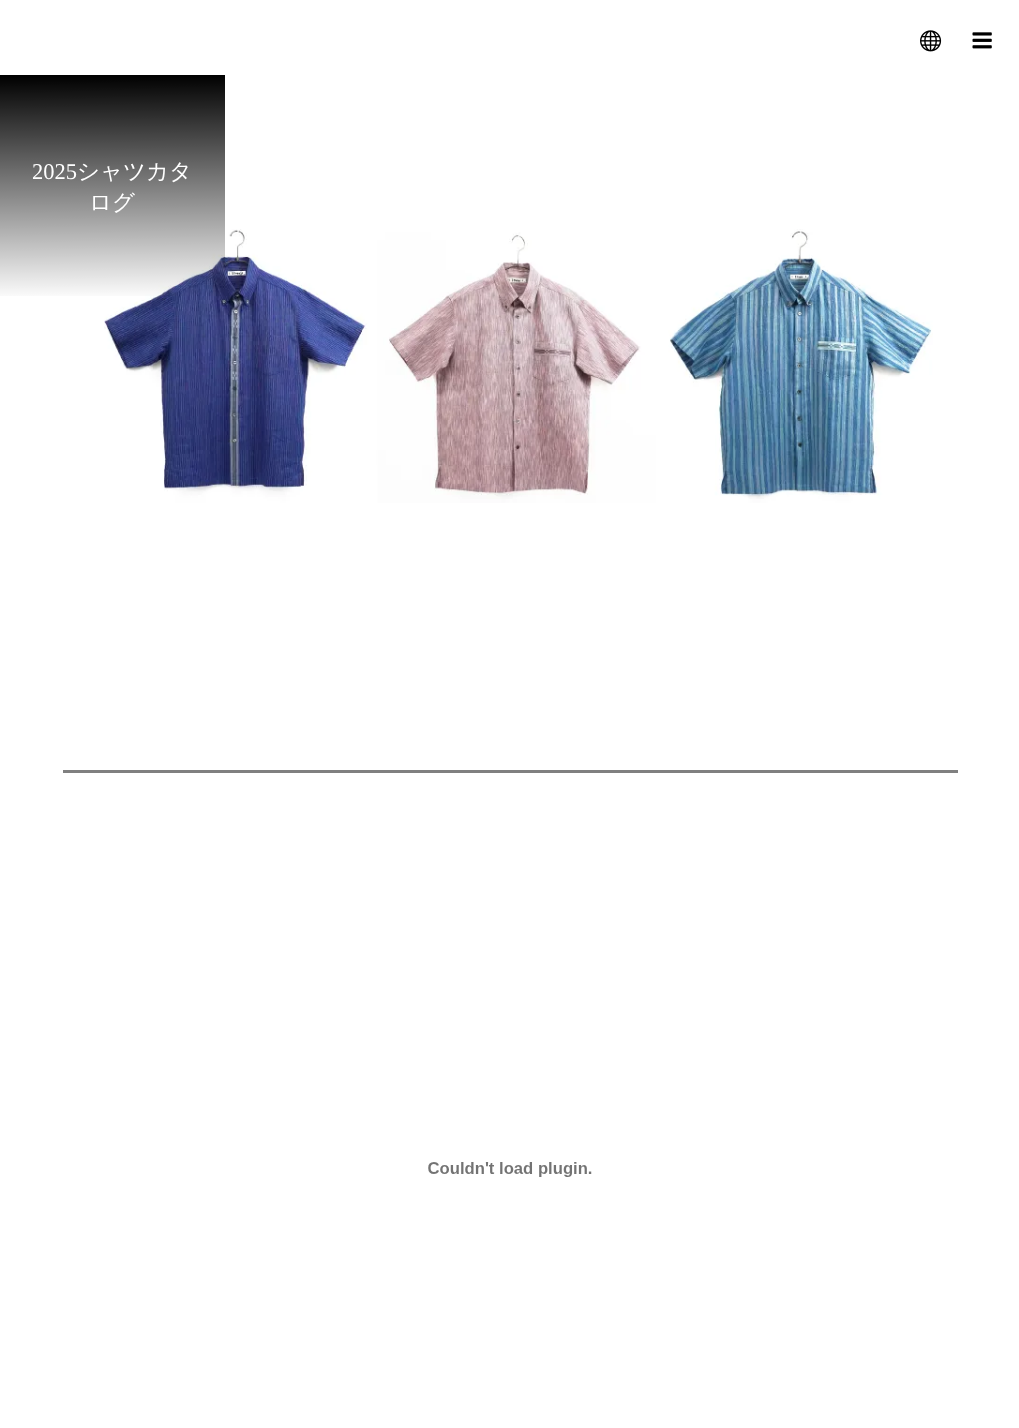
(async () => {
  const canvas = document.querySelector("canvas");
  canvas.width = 1019;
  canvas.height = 1428;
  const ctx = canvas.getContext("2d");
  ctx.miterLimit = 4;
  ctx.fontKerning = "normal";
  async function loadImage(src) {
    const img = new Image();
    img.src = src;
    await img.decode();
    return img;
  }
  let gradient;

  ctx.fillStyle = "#ffffff";
  ctx.fillRect(0, 0, 1019, 1428);
  ctx.drawImage(await loadImage("img/1.png"), 920, 30, 22, 22);
  ctx.drawImage(await loadImage("img/2.png"), 972, 32, 20, 17);
  ctx.drawImage(await loadImage("img/3.png"), 104, 229, 829, 274);
  gradient = ctx.createLinearGradient(112, 75, 113, 300);
  gradient.addColorStop(0, "#000000");
  gradient.addColorStop(1, "rgba(0, 0, 0, 0)");
  ctx.fillStyle = gradient;
  ctx.fillRect(0, 75, 225, 221);
  ctx.fillStyle = "#808080";
  ctx.fillRect(63, 770, 895, 3);
  ctx.drawImage(await loadImage("img/4.png"), 428, 1162, 164, 15);
  ctx.font = "22.5px Liberation Serif";
  ctx.fillStyle = "#ffffff";
  ctx.fillText("2025", 32, 179);
  ctx.font = "500 22.5px WenQuanYi Zen Hei";
  ctx.fillText("シャツカタ", 77, 179);
  ctx.fillText("ログ", 89, 210);
})();
